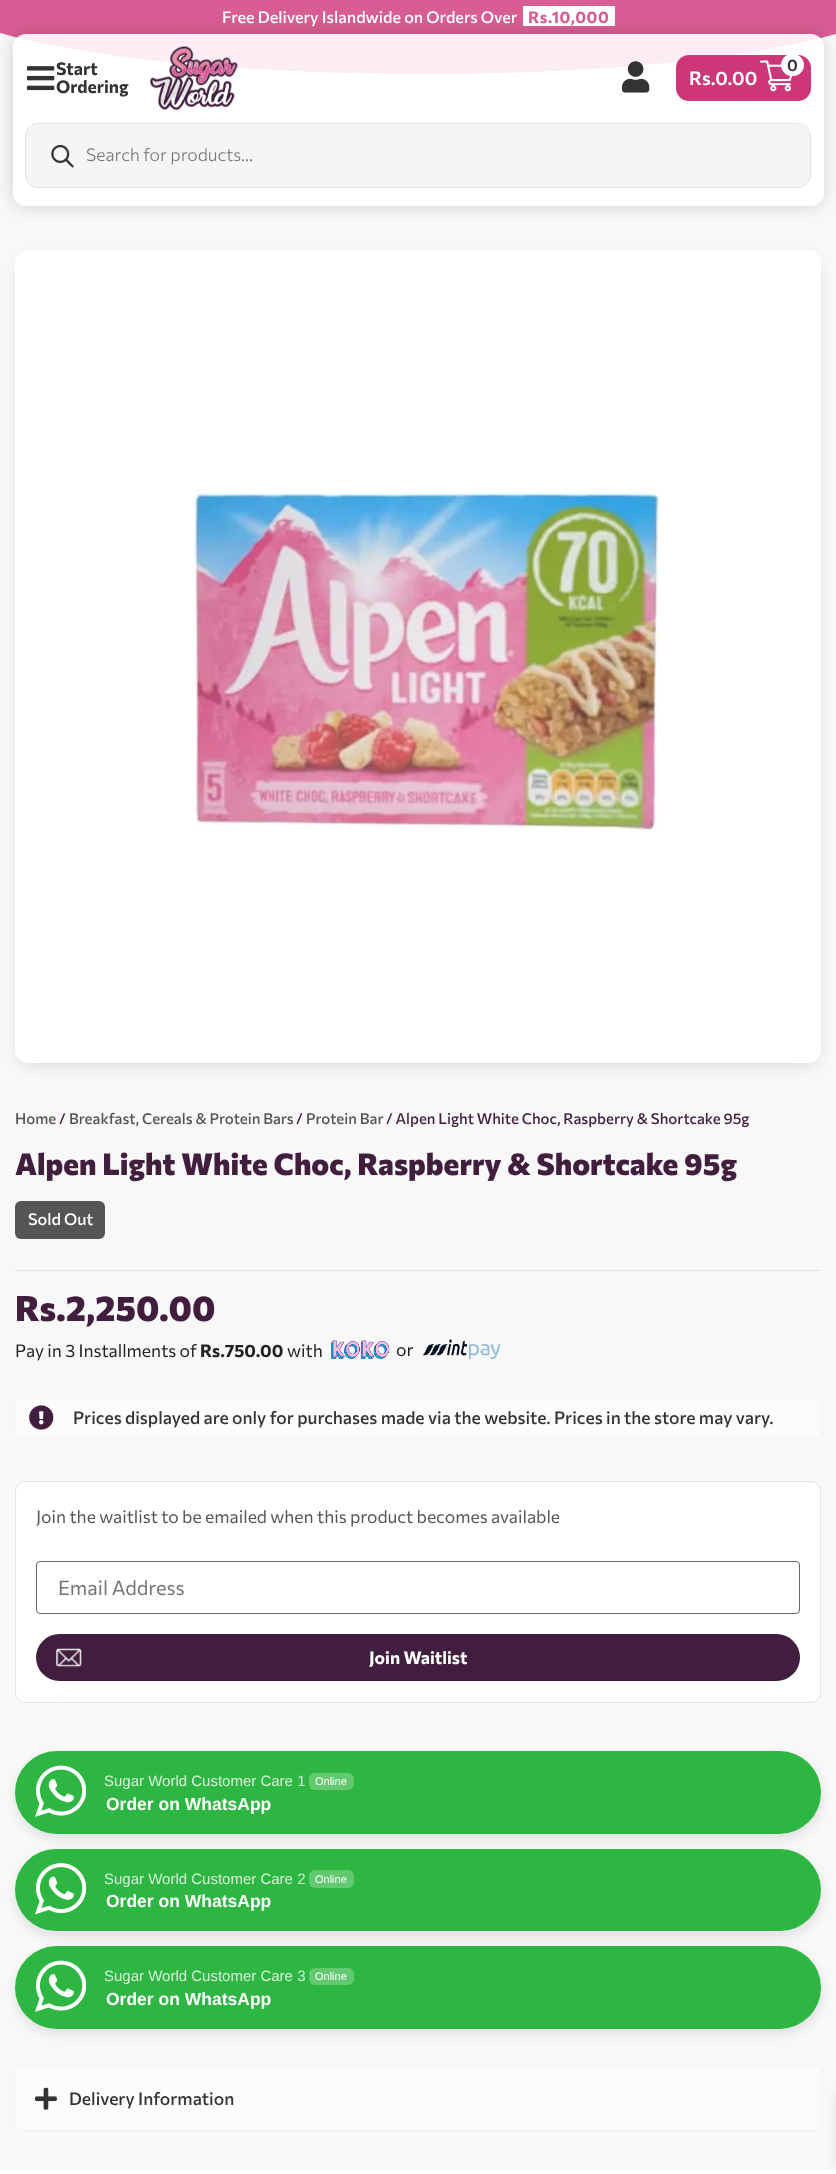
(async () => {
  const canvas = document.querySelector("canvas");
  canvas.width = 836;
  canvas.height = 2174;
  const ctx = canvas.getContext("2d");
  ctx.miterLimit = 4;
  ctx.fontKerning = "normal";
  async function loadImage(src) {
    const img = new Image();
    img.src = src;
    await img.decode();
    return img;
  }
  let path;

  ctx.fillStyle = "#f8f8f8";
  ctx.fillRect(0, 0, 836, 2174);
  ctx.fillStyle = "#d85d94";
  path = new Path2D("M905 2V-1H-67V2C-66 16 56 73 419 74C781 74 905 16 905 2Z");
  ctx.fill(path);
  ctx.fillStyle = "#ffffff";
  ctx.fillRect(523, 6, 92, 20);
  ctx.save();
  path = new Path2D("M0 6H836V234H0ZM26 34H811C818 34 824 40 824 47V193C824 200 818 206 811 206H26C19 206 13 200 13 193V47C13 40 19 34 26 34Z");
  ctx.clip(path, "evenodd");
  ctx.fillStyle = "rgba(0, 0, 0, 0.2)";
  ctx.filter = "blur(9.5px)";
  ctx.beginPath();
  ctx.roundRect(15, 36, 806, 168, 10);
  ctx.fill();
  ctx.filter = "none";
  ctx.restore();
  ctx.fillStyle = "rgba(255, 255, 255, 0.89)";
  ctx.filter = "blur(0.5px)";
  ctx.beginPath();
  ctx.roundRect(13, 34, 811, 172, 13);
  ctx.fill();
  ctx.filter = "none";
  ctx.drawImage(await loadImage("img/1.png"), 26, 66, 29, 25);
  ctx.drawImage(await loadImage("img/2.png"), 150, 45, 88, 65);
  ctx.drawImage(await loadImage("img/3.png"), 621, 61, 29, 32);
  ctx.fillStyle = "#ce367a";
  ctx.beginPath();
  ctx.roundRect(676, 55, 135, 46, 13);
  ctx.fill();
  ctx.drawImage(await loadImage("img/4.png"), 760, 60, 32, 32);
  ctx.fillStyle = "#ffffff";
  ctx.beginPath();
  ctx.roundRect(781, 54, 23, 22, 11);
  ctx.fill();
  ctx.fillStyle = "#f5f5f5";
  ctx.beginPath();
  ctx.roundRect(25.5, 123.5, 785, 64, 12.5);
  ctx.fill();
  ctx.strokeStyle = "#e3e3e3";
  ctx.stroke();
  ctx.drawImage(await loadImage("img/5.png"), 51, 145, 23, 23);
  ctx.fillStyle = "rgba(0, 0, 0, 0.2)";
  ctx.filter = "blur(9.5px)";
  ctx.beginPath();
  ctx.roundRect(23, 264, 791, 797, 5);
  ctx.fill();
  ctx.filter = "none";
  ctx.fillStyle = "#ffffff";
  ctx.beginPath();
  ctx.roundRect(15, 250, 806, 813, 13);
  ctx.fill();
  ctx.drawImage(await loadImage("img/6.png"), 193, 489, 467, 342);
  ctx.fillStyle = "#555555";
  ctx.beginPath();
  ctx.roundRect(15, 1201, 90, 38, 6);
  ctx.fill();
  ctx.fillStyle = "#e3e3e3";
  ctx.fillRect(15, 1270, 806, 1);
  ctx.drawImage(await loadImage("img/7.png"), 331, 1340, 59, 19);
  ctx.drawImage(await loadImage("img/8.png"), 423, 1339, 78, 21);
  ctx.fillStyle = "#fcfcfc";
  ctx.beginPath();
  ctx.roundRect(15.5, 1398.5, 805, 39, 3.5);
  ctx.fill();
  ctx.strokeStyle = "#f4f4f4";
  ctx.stroke();
  ctx.drawImage(await loadImage("img/9.png"), 29, 1405, 25, 25);
  ctx.fillStyle = "#ffffff";
  ctx.beginPath();
  ctx.roundRect(15.5, 1481.5, 805, 221, 9.5);
  ctx.fill();
  ctx.strokeStyle = "#e3e3e3";
  ctx.stroke();
  ctx.beginPath();
  ctx.roundRect(36.5, 1561.5, 763, 52, 3.5);
  ctx.strokeStyle = "#666666";
  ctx.stroke();
  ctx.fillStyle = "#411e3e";
  ctx.beginPath();
  ctx.roundRect(36, 1634, 764, 47, 23.5);
  ctx.fill();
  ctx.drawImage(await loadImage("img/10.png"), 56, 1648, 26, 19);
  ctx.fillStyle = "rgba(32, 32, 37, 0.09)";
  ctx.filter = "blur(5px)";
  ctx.beginPath();
  ctx.roundRect(14, 1755, 809, 85, 42.5);
  ctx.fill();
  ctx.filter = "none";
  ctx.fillStyle = "#2db742";
  ctx.beginPath();
  ctx.roundRect(15, 1751, 806, 83, 41.5);
  ctx.fill();
  ctx.drawImage(await loadImage("img/11.png"), 35, 1765, 51, 52);
  ctx.fillStyle = "#62c971";
  ctx.beginPath();
  ctx.roundRect(309, 1773, 45, 17, 6);
  ctx.fill();
  ctx.fillStyle = "rgba(32, 32, 37, 0.09)";
  ctx.filter = "blur(5px)";
  ctx.beginPath();
  ctx.roundRect(14, 1853, 809, 85, 42.5);
  ctx.fill();
  ctx.filter = "none";
  ctx.fillStyle = "#2db742";
  ctx.beginPath();
  ctx.roundRect(15, 1849, 806, 82, 41);
  ctx.fill();
  ctx.drawImage(await loadImage("img/12.png"), 35, 1863, 51, 52);
  ctx.fillStyle = "#62c971";
  ctx.beginPath();
  ctx.roundRect(309, 1870, 45, 18, 6);
  ctx.fill();
  ctx.fillStyle = "rgba(32, 32, 37, 0.09)";
  ctx.filter = "blur(5px)";
  ctx.beginPath();
  ctx.roundRect(14, 1950, 809, 85, 42.5);
  ctx.fill();
  ctx.filter = "none";
  ctx.fillStyle = "#2db742";
  ctx.beginPath();
  ctx.roundRect(15, 1946, 806, 83, 41.5);
  ctx.fill();
  ctx.drawImage(await loadImage("img/11.png"), 35, 1960, 51, 52);
  ctx.fillStyle = "#62c971";
  ctx.beginPath();
  ctx.roundRect(309, 1968, 45, 17, 6);
  ctx.fill();
  ctx.fillStyle = "#fcfcfc";
  ctx.beginPath();
  ctx.roundRect(15.5, 2066.5, 805, 64, 3.5);
  ctx.fill();
  ctx.strokeStyle = "#f4f4f4";
  ctx.stroke();
  ctx.drawImage(await loadImage("img/13.png"), 35, 2087, 22, 23);
  ctx.fillStyle = "#ffffff";
  ctx.fillRect(0, 2169, 836, 5);
  ctx.fillStyle = "rgba(0, 0, 0, 0.1)";
  ctx.filter = "blur(6px)";
  ctx.beginPath();
  ctx.rect(836, 2093, 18, 76);
  ctx.fill();
  ctx.filter = "none";
  ctx.font = "500 16.25px Commissioner";
  ctx.fillStyle = "#ffffff";
  ctx.fillText("Free Delivery Islandwide on Orders Over", 222, 23);
  ctx.letterSpacing = "0.6px";
  ctx.font = "bold 16.25px Commissioner";
  ctx.fillStyle = "#d65c93";
  ctx.fillText("Rs.10,000", 528, 23);
  ctx.letterSpacing = "0px";
  ctx.font = "bold 17.5px Commissioner";
  ctx.fillStyle = "#333333";
  ctx.fillText("Start", 56, 75);
  ctx.fillText("Ordering", 56, 93);
  ctx.font = "600 16.25px Commissioner";
  ctx.fillText("0", 787, 71);
  ctx.font = "600 19px Commissioner";
  ctx.fillStyle = "#ffffff";
  ctx.fillText("Rs.0.00", 689, 85);
  ctx.font = "300 17.5px Commissioner";
  ctx.fillStyle = "#757575";
  ctx.fillText("Search for products...", 86, 161);
  ctx.font = "500 15px Commissioner";
  ctx.fillStyle = "#555555";
  ctx.fillText("Home", 15, 1124);
  ctx.fillStyle = "#411e3e";
  ctx.fillText("/", 59, 1124);
  ctx.fillStyle = "#555555";
  ctx.fillText("Breakfast, Cereals & Protein Bars", 69, 1124);
  ctx.fillStyle = "#411e3e";
  ctx.fillText("/", 296, 1124);
  ctx.fillStyle = "#555555";
  ctx.fillText("Protein Bar", 306, 1124);
  ctx.fillStyle = "#411e3e";
  ctx.fillText("/ Alpen Light White Choc, Raspberry & Shortcake 95g", 386, 1124);
  ctx.font = "800 30px Commissioner";
  ctx.fillText("Alpen Light White Choc, Raspberry & Shortcake 95g", 15, 1175);
  ctx.font = "500 16.25px Commissioner";
  ctx.fillStyle = "#ffffff";
  ctx.fillText("Sold Out", 28, 1225);
  ctx.font = "800 35px Commissioner";
  ctx.fillStyle = "#411e3e";
  ctx.fillText("Rs.2,250.00", 15, 1321);
  ctx.font = "17.5px Commissioner";
  ctx.fillStyle = "#222222";
  ctx.fillText("Pay in 3 Installments of", 15, 1357);
  ctx.font = "bold 17.5px Commissioner";
  ctx.fillText("Rs.750.00", 200, 1357);
  ctx.font = "17.5px Commissioner";
  ctx.fillText("with", 287, 1357);
  ctx.fillText("or", 396, 1356);
  ctx.font = "500 17.5px Commissioner";
  ctx.fillStyle = "#333333";
  ctx.fillText("Prices displayed are only for purchases made via the website. Prices in the store may vary.", 73, 1424);
  ctx.font = "17.5px Commissioner";
  ctx.fillStyle = "#555555";
  ctx.fillText("Join the waitlist to be emailed when this product becomes available", 36, 1523);
  ctx.font = "20px Commissioner";
  ctx.fillStyle = "#757575";
  ctx.fillText("Email Address", 58, 1595);
  ctx.font = "bold 17.5px Commissioner";
  ctx.fillStyle = "#ffffff";
  ctx.fillText("Join Waitlist", 369, 1664);
  ctx.font = "15px Liberation Sans";
  ctx.fillStyle = "#d5f0d9";
  ctx.fillText("Sugar World Customer Care 1", 104, 1786);
  ctx.font = "11px Liberation Sans";
  ctx.fillStyle = "#ffffff";
  ctx.fillText("Online", 315, 1785);
  ctx.font = "bold 17.5px Liberation Sans";
  ctx.fillText("Order on WhatsApp", 106, 1810);
  ctx.font = "15px Liberation Sans";
  ctx.fillStyle = "#d5f0d9";
  ctx.fillText("Sugar World Customer Care 2", 104, 1884);
  ctx.font = "11px Liberation Sans";
  ctx.fillStyle = "#ffffff";
  ctx.fillText("Online", 315, 1883);
  ctx.font = "bold 17.5px Liberation Sans";
  ctx.fillText("Order on WhatsApp", 106, 1907);
  ctx.font = "15px Liberation Sans";
  ctx.fillStyle = "#d5f0d9";
  ctx.fillText("Sugar World Customer Care 3", 104, 1981);
  ctx.font = "11px Liberation Sans";
  ctx.fillStyle = "#ffffff";
  ctx.fillText("Online", 315, 1980);
  ctx.font = "bold 17.5px Liberation Sans";
  ctx.fillText("Order on WhatsApp", 106, 2005);
  ctx.font = "500 17.5px Commissioner";
  ctx.fillStyle = "#333333";
  ctx.fillText("Delivery Information", 69, 2105);
})();
